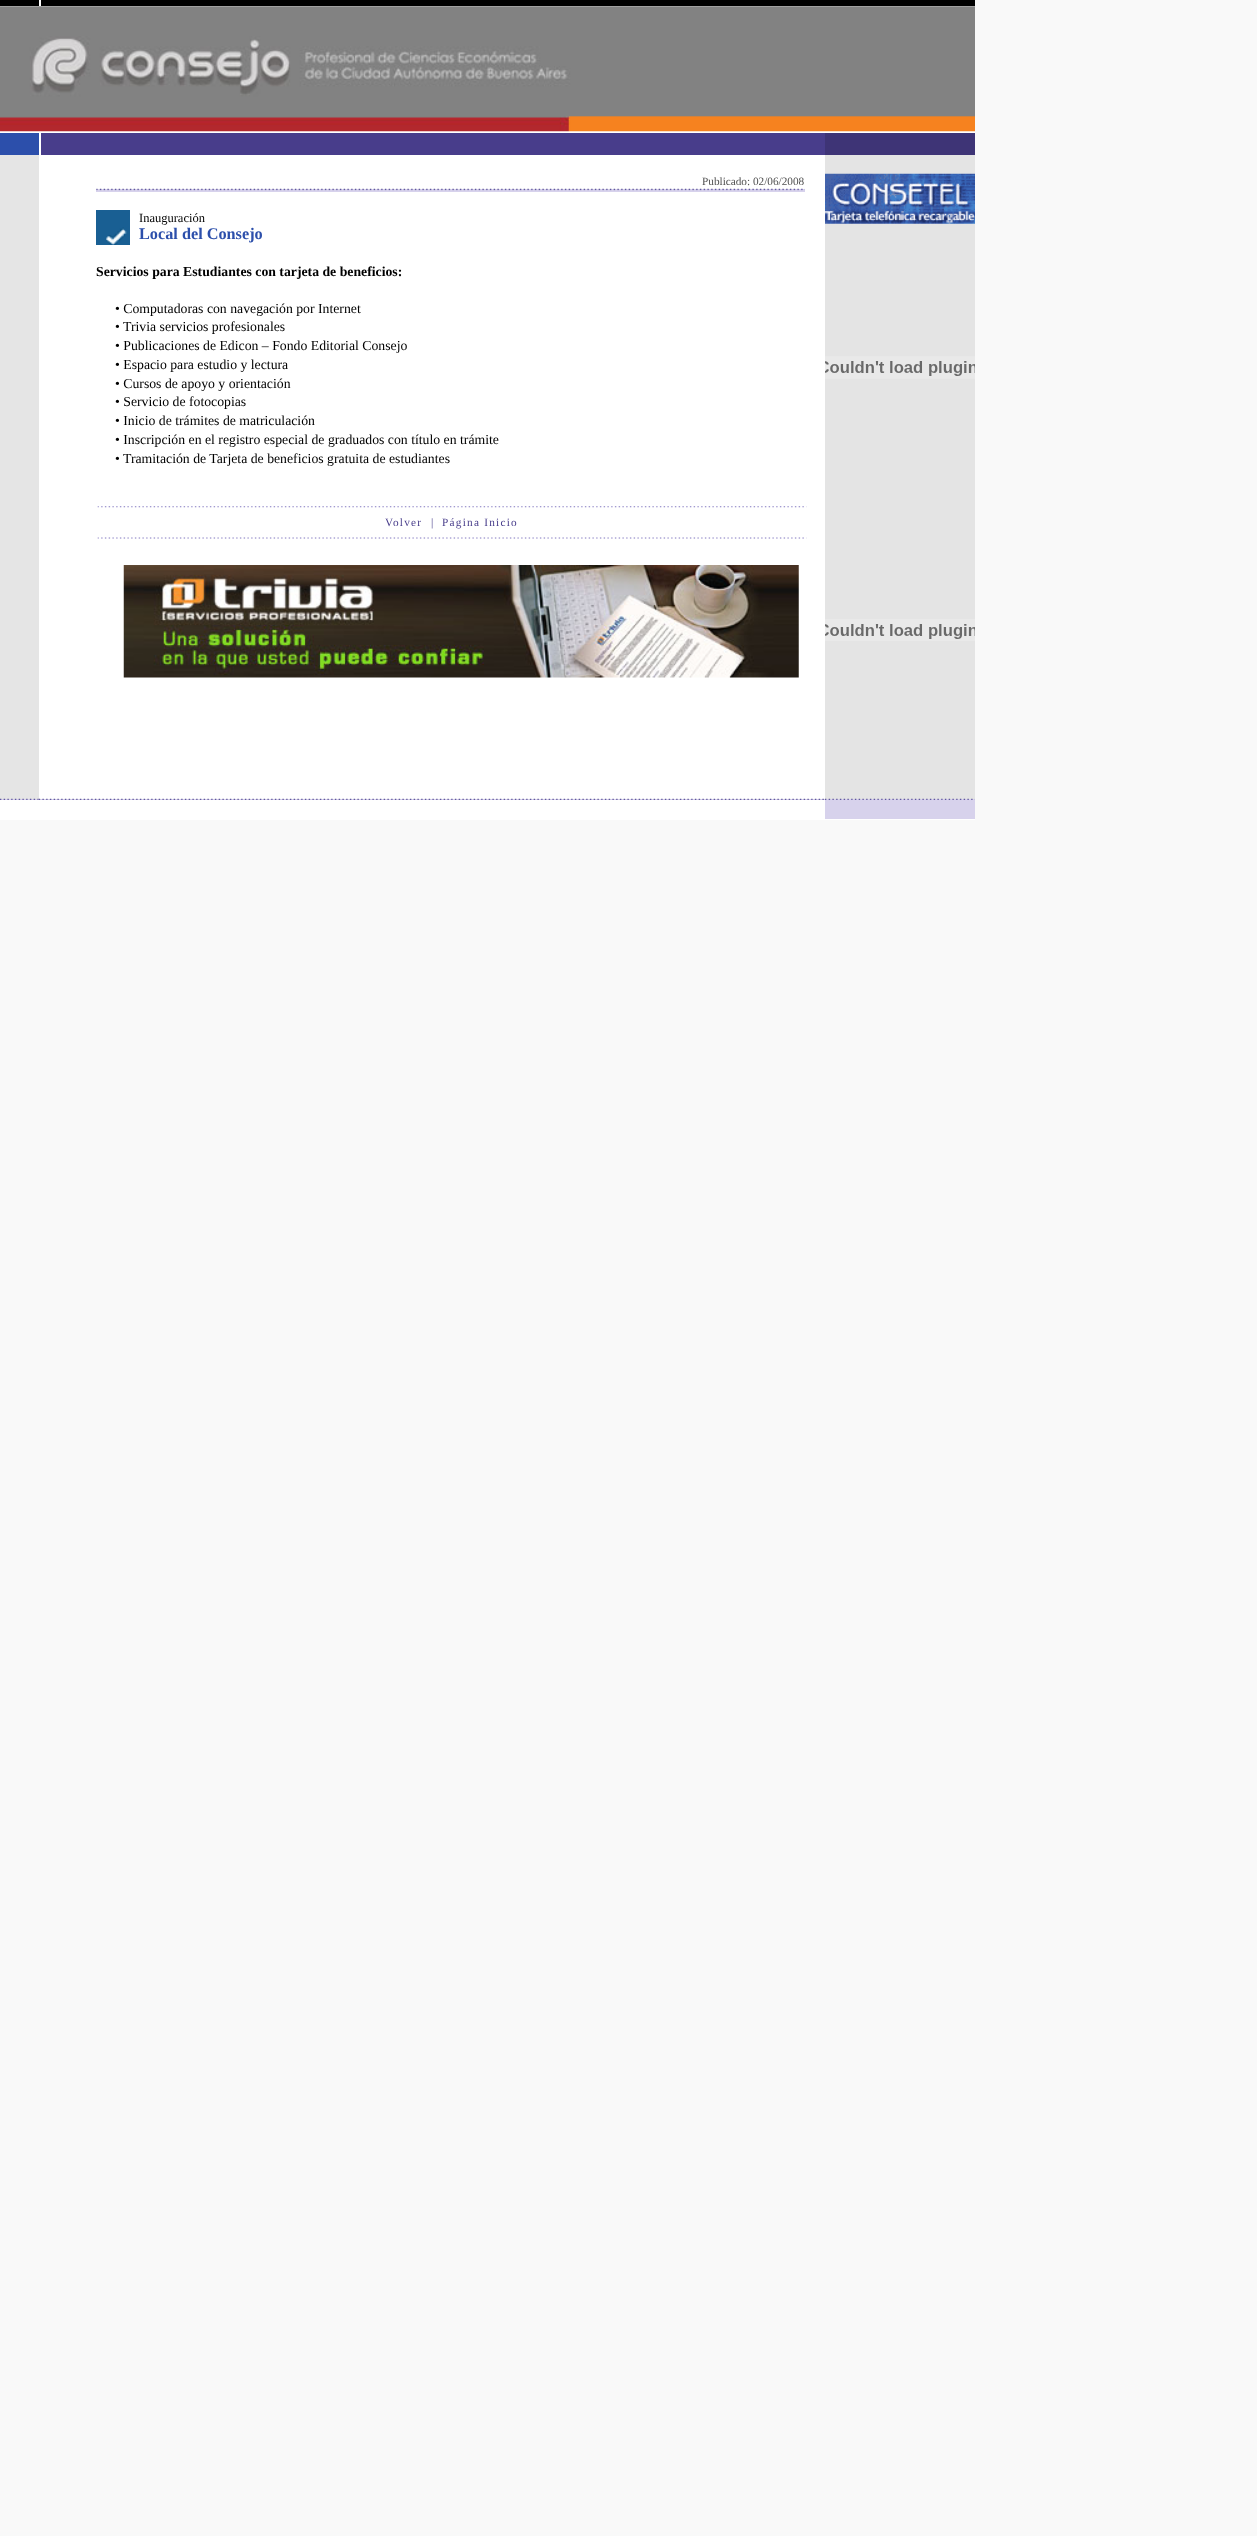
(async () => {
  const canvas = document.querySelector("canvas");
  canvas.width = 1257;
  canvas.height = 2536;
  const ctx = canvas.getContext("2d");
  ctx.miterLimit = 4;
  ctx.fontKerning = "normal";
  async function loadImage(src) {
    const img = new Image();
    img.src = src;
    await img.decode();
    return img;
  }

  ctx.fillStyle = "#f9f9f9";
  ctx.fillRect(0, 0, 1257, 2536);
  for (const [x, y, w, h, color] of [
    [0, 0, 975, 820, "#ffffff"],
    [0, 0, 39, 6, "#000000"],
    [41, 0, 934, 6, "#000000"],
  ]) {
    ctx.fillStyle = color;
    ctx.fillRect(x, y, w, h);
  }
  ctx.drawImage(await loadImage("img/1.png"), 0, 6, 975, 126);
  for (const [x, y, w, h, color] of [
    [0, 133, 39, 22, "#2c4fab"],
    [41, 133, 784, 22, "#483d8b"],
    [825, 133, 150, 22, "#3e3476"],
    [0, 155, 39, 644, "#e5e5e5"],
    [96, 189, 709, 3, "#d7d2ec"],
  ]) {
    ctx.fillStyle = color;
    ctx.fillRect(x, y, w, h);
  }
  ctx.drawImage(await loadImage("img/2.png"), 96, 188, 709, 3);
  ctx.fillStyle = "#195f93";
  ctx.fillRect(96, 210, 34, 35);
  ctx.drawImage(await loadImage("img/3.png"), 106, 227, 21, 18);
  ctx.drawImage(await loadImage("img/4.png"), 97, 506, 710, 2);
  ctx.drawImage(await loadImage("img/5.png"), 97, 537, 710, 2);
  ctx.drawImage(await loadImage("img/6.png"), 123, 565, 676, 113);
  ctx.fillStyle = "#e4e4e4";
  ctx.fillRect(825, 155, 150, 644);
  ctx.drawImage(await loadImage("img/7.png"), 825, 173, 150, 51);
  ctx.drawImage(await loadImage("img/8.png"), 825, 356, 150, 23);
  ctx.drawImage(await loadImage("img/9.png"), 825, 619, 150, 22);
  ctx.fillStyle = "#d7d2ec";
  ctx.fillRect(0, 799, 975, 1);
  ctx.drawImage(await loadImage("img/10.png"), 0, 798, 39, 2);
  ctx.drawImage(await loadImage("img/11.png"), 38, 798, 786, 2);
  ctx.drawImage(await loadImage("img/12.png"), 825, 798, 150, 2);
  ctx.fillRect(825, 800, 150, 19);
  ctx.font = "11.25px Liberation Serif";
  ctx.fillStyle = "#505050";
  ctx.fillText("Publicado: 02/06/2008", 702, 185);
  ctx.font = "12.5px Liberation Serif";
  ctx.fillStyle = "#000000";
  ctx.fillText("Inauguración", 139, 222);
  ctx.font = "bold 16.25px Liberation Serif";
  ctx.fillStyle = "#2c4fab";
  ctx.fillText("Local del Consejo", 139, 239);
  ctx.font = "bold 13.75px Liberation Serif";
  ctx.fillStyle = "#000000";
  ctx.fillText("Servicios para Estudiantes con tarjeta de beneficios:", 96, 276);
  ctx.font = "13.75px Liberation Serif";
  for (const [text, x, y] of [
    ["• Computadoras con navegación por Internet", 115, 313],
    ["• Trivia servicios profesionales", 115, 331],
    ["• Publicaciones de Edicon – Fondo Editorial Consejo", 115, 350],
    ["• Espacio para estudio y lectura", 115, 369],
    ["• Cursos de apoyo y orientación", 115, 388],
    ["• Servicio de fotocopias", 115, 406],
    ["• Inicio de trámites de matriculación", 115, 425],
    ["• Inscripción en el registro especial de graduados con título en trámite", 115, 444],
    ["• Tramitación de Tarjeta de beneficios gratuita de estudiantes", 115, 463],
  ]) {
    ctx.fillText(text, x, y);
  }
  ctx.letterSpacing = "1.25px";
  ctx.font = "11.25px Liberation Serif";
  ctx.fillStyle = "#483d8b";
  for (const [text, x, y] of [
    ["Volver", 385, 526],
    ["|", 431, 526],
    ["Página Inicio", 442, 526],
  ]) {
    ctx.fillText(text, x, y);
  }
})();
